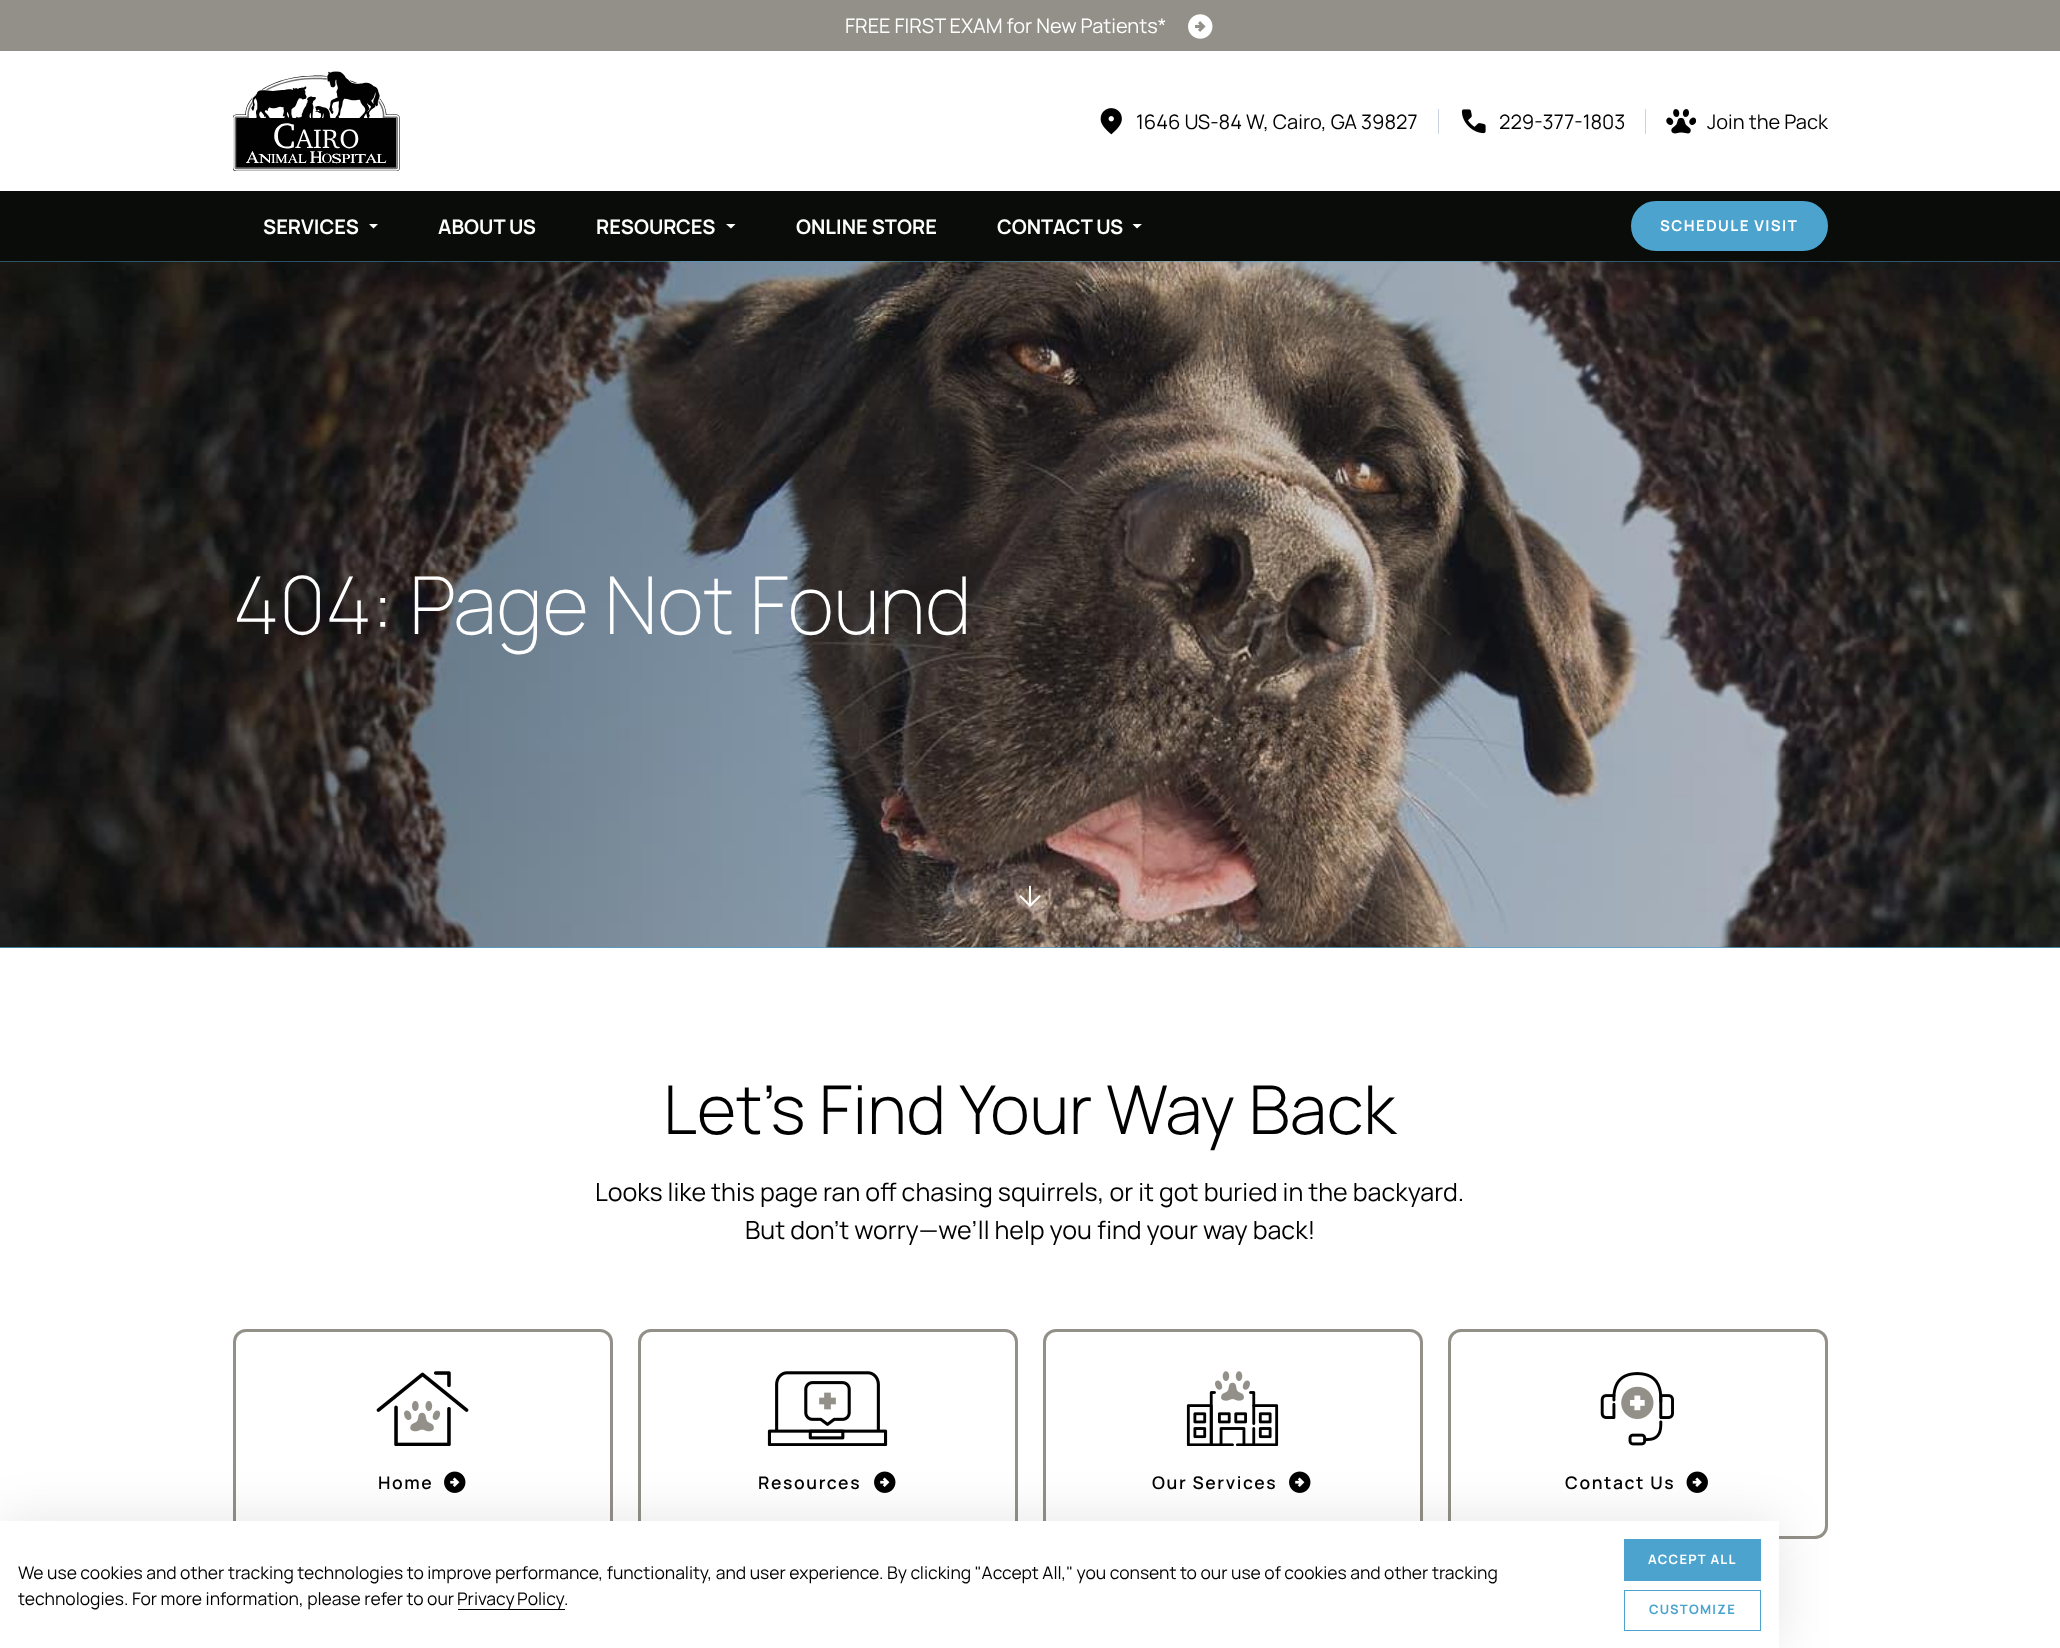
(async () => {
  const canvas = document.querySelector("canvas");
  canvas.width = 2060;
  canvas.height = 1648;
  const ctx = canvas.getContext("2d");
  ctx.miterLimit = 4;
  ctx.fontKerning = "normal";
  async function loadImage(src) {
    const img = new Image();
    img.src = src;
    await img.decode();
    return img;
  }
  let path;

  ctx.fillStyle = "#ffffff";
  ctx.fillRect(0, 0, 2060, 1648);
  ctx.fillStyle = "#929088";
  ctx.fillRect(0, 0, 2060, 51);
  ctx.drawImage(await loadImage("img/1.png"), 1188, 14, 25, 25);
  ctx.drawImage(await loadImage("img/2.png"), 233, 71, 167, 100);
  ctx.drawImage(await loadImage("img/3.png"), 1100, 108, 22, 27);
  ctx.fillStyle = "#cbd5e1";
  ctx.fillRect(1438, 109, 1, 25);
  ctx.drawImage(await loadImage("img/4.png"), 1461, 109, 25, 25);
  ctx.fillRect(1645, 109, 1, 25);
  ctx.drawImage(await loadImage("img/5.png"), 1666, 109, 30, 25);
  ctx.fillStyle = "#090c08";
  ctx.fillRect(0, 191, 2060, 70);
  ctx.fillStyle = "#ffffff";
  path = new Path2D("M369 224L373.5 228.5L378 224Z");
  ctx.fill(path);
  path = new Path2D("M726 224L731 228.5L735.5 224Z");
  ctx.fill(path);
  path = new Path2D("M1132.5 224L1137 228.5L1142 224Z");
  ctx.fill(path);
  ctx.fillStyle = "#4ba3ce";
  ctx.beginPath();
  ctx.roundRect(1632.5, 202.5, 194, 47, 23.5);
  ctx.fill();
  ctx.strokeStyle = "#4ba3ce";
  ctx.lineWidth = 3;
  ctx.stroke();
  ctx.fillRect(0, 261, 2060, 687);
  ctx.drawImage(await loadImage("img/6.png"), 0, 261, 2060, 687);
  ctx.drawImage(await loadImage("img/7.png"), 1019, 885, 22, 22);
  ctx.beginPath();
  ctx.roundRect(234.5, 1330.5, 377, 207, 11.5);
  ctx.strokeStyle = "#929088";
  ctx.stroke();
  ctx.drawImage(await loadImage("img/8.png"), 376, 1371, 93, 75);
  ctx.drawImage(await loadImage("img/9.png"), 444, 1471, 22, 22);
  ctx.beginPath();
  ctx.roundRect(639.5, 1330.5, 377, 207, 11.5);
  ctx.stroke();
  ctx.drawImage(await loadImage("img/10.png"), 767, 1371, 121, 75);
  ctx.drawImage(await loadImage("img/9.png"), 874, 1471, 22, 22);
  ctx.beginPath();
  ctx.roundRect(1044.5, 1330.5, 377, 207, 11.5);
  ctx.stroke();
  ctx.drawImage(await loadImage("img/11.png"), 1186, 1371, 93, 75);
  ctx.drawImage(await loadImage("img/9.png"), 1289, 1471, 22, 22);
  ctx.beginPath();
  ctx.roundRect(1449.5, 1330.5, 377, 207, 11.5);
  ctx.stroke();
  ctx.drawImage(await loadImage("img/12.png"), 1600, 1372, 74, 74);
  ctx.drawImage(await loadImage("img/13.png"), 1686, 1471, 22, 22);
  ctx.fillStyle = "rgba(0, 0, 0, 0.1)";
  ctx.filter = "blur(26px)";
  ctx.beginPath();
  ctx.rect(0, 1521, 1779, 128);
  ctx.fill();
  ctx.filter = "none";
  for (const [x, y, w, h, color] of [
    [0, 1521, 1779, 127, "#ffffff"],
    [458, 1609, 107, 1, "#000000"],
    [1624, 1539, 137, 42, "#4ba3ce"],
  ]) {
    ctx.fillStyle = color;
    ctx.fillRect(x, y, w, h);
  }
  ctx.strokeStyle = "#4ba3ce";
  ctx.lineWidth = 1;
  ctx.strokeRect(1624.5, 1590.5, 136, 40);
  ctx.font = "20px Manrope";
  ctx.fillStyle = "#ffffff";
  ctx.fillText("FREE FIRST EXAM for New Patients*", 845, 33);
  ctx.fillStyle = "#000000";
  for (const [text, x, y] of [
    ["1646 US-84 W, Cairo, GA 39827", 1136, 129],
    ["229-377-1803", 1499, 129],
    ["Join the Pack", 1707, 129],
  ]) {
    ctx.fillText(text, x, y);
  }
  ctx.font = "bold 20px Manrope";
  ctx.fillStyle = "#ffffff";
  for (const [text, x, y] of [
    ["SERVICES", 263, 234],
    ["ABOUT US", 438, 234],
    ["RESOURCES", 596, 234],
    ["ONLINE STORE", 796, 234],
    ["CONTACT US", 997, 234],
  ]) {
    ctx.fillText(text, x, y);
  }
  ctx.letterSpacing = "1.4px";
  ctx.font = "bold 15px Manrope";
  ctx.fillText("SCHEDULE VISIT", 1660, 231);
  ctx.letterSpacing = "0px";
  ctx.font = "200 80px Manrope";
  ctx.fillText("404: Page Not Found", 233, 634);
  ctx.font = "300 67.5px Manrope";
  ctx.fillStyle = "#000000";
  ctx.fillText("Let's Find Your Way Back", 663, 1134);
  ctx.font = "25px Manrope";
  ctx.fillText("Looks like this page ran off chasing squirrels, or it got buried in the backyard.", 595, 1201);
  ctx.fillText("But don’t worry—we’ll help you find your way back!", 745, 1239);
  ctx.letterSpacing = "1.6px";
  ctx.font = "600 17.5px Manrope";
  for (const [text, x, y] of [
    ["Home", 378, 1489],
    ["Resources", 758, 1489],
    ["Our Services", 1152, 1489],
    ["Contact Us", 1565, 1489],
  ]) {
    ctx.fillText(text, x, y);
  }
  ctx.letterSpacing = "0px";
  ctx.font = "17.5px Manrope";
  ctx.fillText("We use cookies and other tracking technologies to improve performance, functionality, and user experience. By clicking \"Accept All,\" you consent to our use of cookies and other tracking", 18, 1579);
  ctx.fillText("technologies. For more information, please refer to our", 18, 1605);
  ctx.wordSpacing = "-1px";
  ctx.fillText("Privacy Policy", 457, 1605);
  ctx.wordSpacing = "0px";
  ctx.fillText(".", 564, 1605);
  ctx.letterSpacing = "1.25px";
  ctx.font = "bold 13px Manrope";
  ctx.fillStyle = "#ffffff";
  ctx.fillText("ACCEPT ALL", 1648, 1564);
  ctx.fillStyle = "#4ba3ce";
  ctx.fillText("CUSTOMIZE", 1649, 1614);
})();
